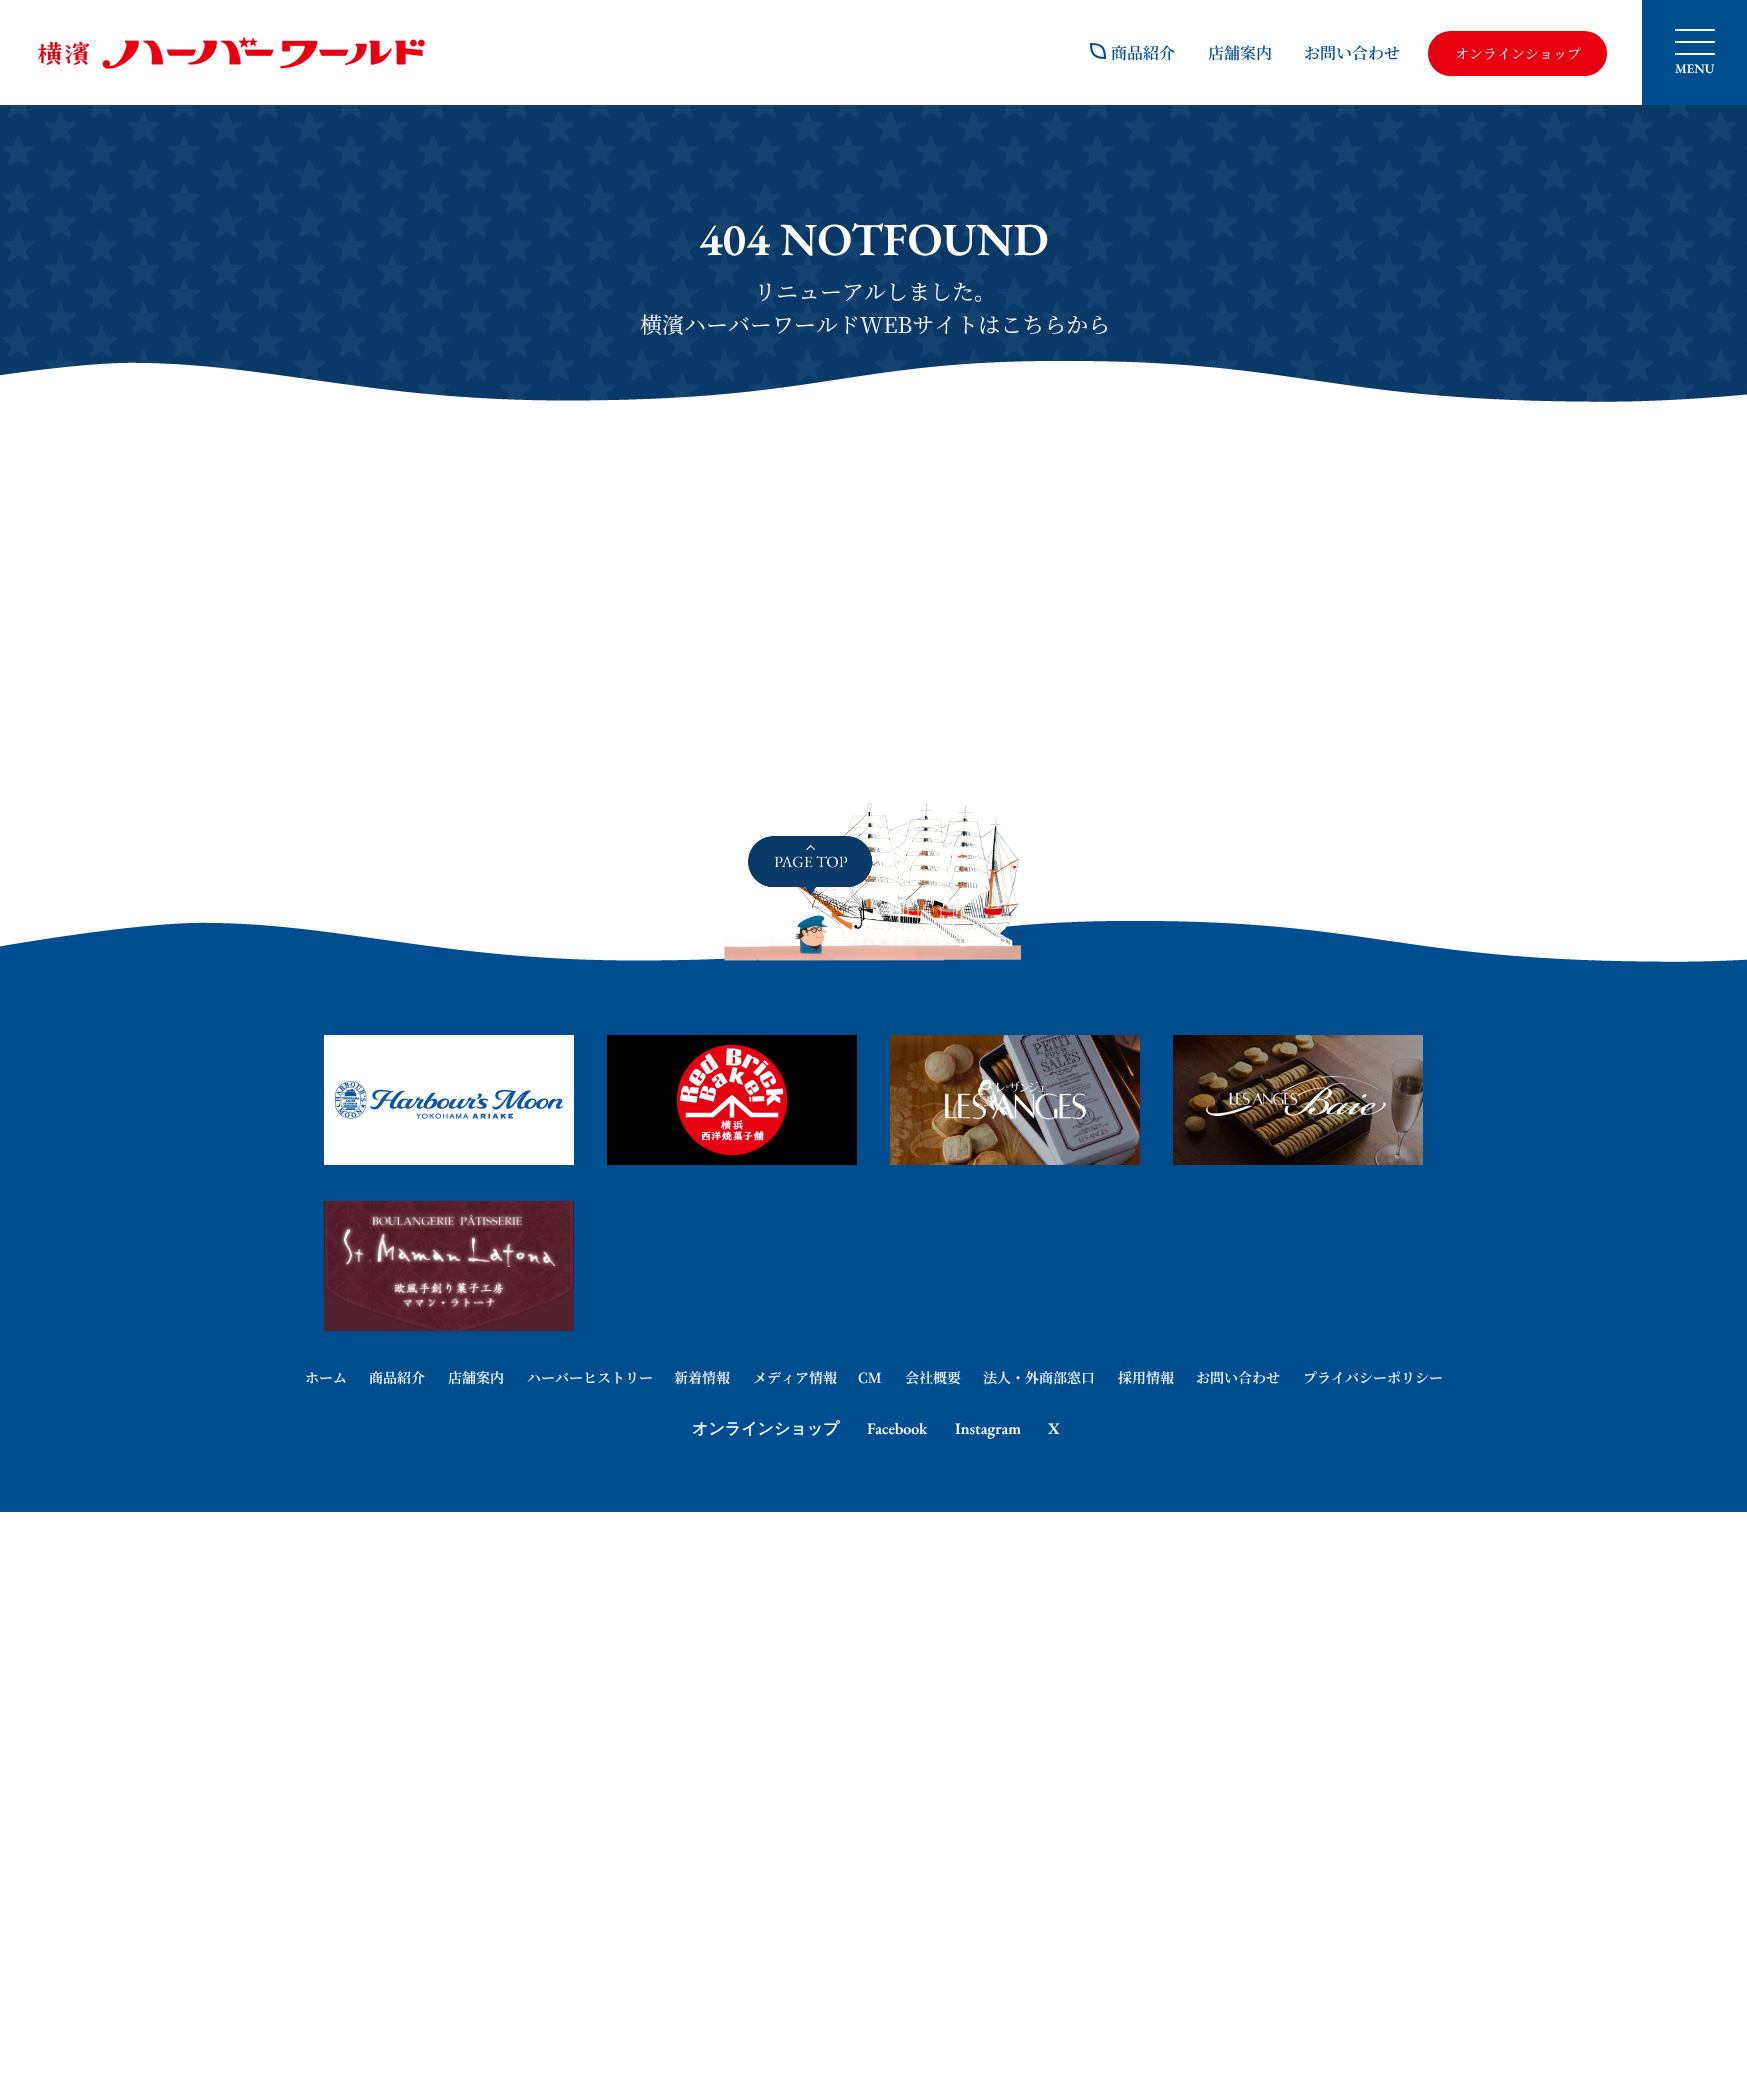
(async () => {
  const canvas = document.querySelector("canvas");
  canvas.width = 1747;
  canvas.height = 2095;
  const ctx = canvas.getContext("2d");
  ctx.miterLimit = 4;
  ctx.fontKerning = "normal";
  async function loadImage(src) {
    const img = new Image();
    img.src = src;
    await img.decode();
    return img;
  }
  let path;

  ctx.fillStyle = "#ffffff";
  ctx.fillRect(0, 0, 1747, 2095);
  ctx.drawImage(await loadImage("img/1.png"), 38, 37, 387, 32);
  path = new Path2D("M1091 44C1101 44 1105 46.5 1105 58C1094.5 58 1091 54 1091 44Z");
  ctx.strokeStyle = "#004e8f";
  ctx.lineWidth = 2.1;
  ctx.stroke(path);
  ctx.fillStyle = "#e60012";
  ctx.beginPath();
  ctx.roundRect(1429, 32, 177, 43, 21.5);
  ctx.fill();
  ctx.strokeStyle = "#e60012";
  ctx.lineWidth = 2;
  ctx.stroke();
  for (const [x, y, w, h, color] of [
    [1642, 0, 105, 105, "#004e8f"],
    [1675, 29, 40, 2, "#ffffff"],
    [1675, 41, 40, 2, "#ffffff"],
    [1675, 53, 40, 2, "#ffffff"],
  ]) {
    ctx.fillStyle = color;
    ctx.fillRect(x, y, w, h);
  }
  ctx.drawImage(await loadImage("img/2.png"), 0, 105, 1747, 297);
  ctx.drawImage(await loadImage("img/3.png"), 0, 361, 1747, 44);
  ctx.drawImage(await loadImage("img/5.png"), 0, 921, 1747, 44);
  ctx.drawImage(await loadImage("img/4.png"), 724, 803, 300, 158);
  ctx.fillStyle = "#004e8f";
  ctx.fillRect(0, 965, 1747, 547);
  ctx.drawImage(await loadImage("img/6.png"), 324, 1035, 250, 130);
  ctx.drawImage(await loadImage("img/7.png"), 607, 1035, 250, 130);
  ctx.drawImage(await loadImage("img/8.png"), 890, 1035, 250, 130);
  ctx.drawImage(await loadImage("img/9.png"), 1173, 1035, 250, 130);
  ctx.drawImage(await loadImage("img/10.png"), 324, 1201, 250, 130);
  ctx.font = "600 16px Noto Serif JP";
  for (const [text, x, y] of [
    ["商品紹介", 1111, 59],
    ["店舗案内", 1208, 59],
    ["お問い合わせ", 1304, 59],
  ]) {
    ctx.fillText(text, x, y);
  }
  ctx.font = "14px Noto Serif JP";
  ctx.fillStyle = "#ffffff";
  ctx.fillText("オンラインショップ", 1455, 59);
  ctx.font = "600 13px EB Garamond";
  ctx.fillText("MENU", 1675, 73);
  ctx.font = "600 46px EB Garamond";
  ctx.fillText("404 NOTFOUND", 699, 255);
  ctx.font = "22px Noto Serif JP";
  ctx.fillText("リニューアルしました。", 754, 300);
  ctx.fillText("横濱ハーバーワールドWEBサイトはこちらから", 640, 333);
  ctx.font = "600 14px Noto Serif JP";
  for (const [text, x, y] of [
    ["ホーム", 305, 1383],
    ["商品紹介", 369, 1383],
    ["店舗案内", 448, 1383],
    ["ハーバーヒストリー", 527, 1383],
    ["新着情報", 674, 1383],
    ["メディア情報", 753, 1383],
    ["CM", 858, 1383],
    ["会社概要", 905, 1383],
    ["法人・外商部窓口", 983, 1383],
    ["採用情報", 1118, 1383],
    ["お問い合わせ", 1196, 1383],
    ["プライバシーポリシー", 1303, 1383],
  ]) {
    ctx.fillText(text, x, y);
  }
  ctx.font = "bold 16px WenQuanYi Zen Hei";
  ctx.fillText("オンラインショップ", 692, 1434);
  ctx.font = "600 16px EB Garamond";
  for (const [text, x, y] of [
    ["Facebook", 867, 1434],
    ["Instagram", 955, 1434],
    ["X", 1048, 1434],
  ]) {
    ctx.fillText(text, x, y);
  }
})();
